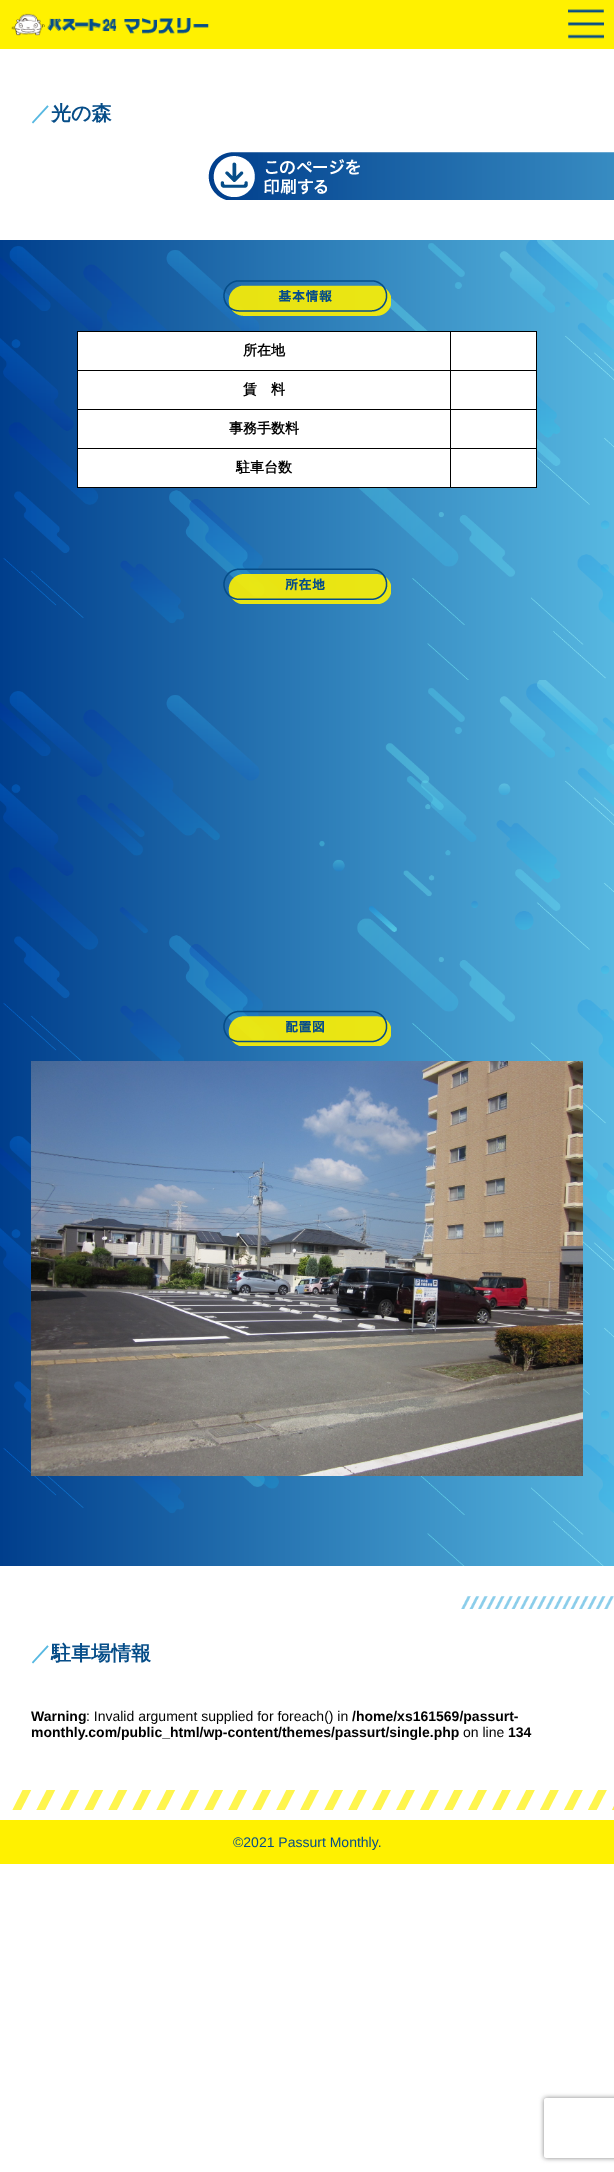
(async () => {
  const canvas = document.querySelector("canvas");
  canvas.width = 614;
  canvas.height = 2172;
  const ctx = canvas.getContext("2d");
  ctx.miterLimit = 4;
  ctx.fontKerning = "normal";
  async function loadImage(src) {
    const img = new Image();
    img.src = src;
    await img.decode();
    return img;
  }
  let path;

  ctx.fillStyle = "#ffffff";
  ctx.fillRect(0, 0, 614, 2172);
  ctx.fillStyle = "#fff100";
  ctx.fillRect(0, 0, 614, 49);
  ctx.drawImage(await loadImage("img/1.png"), 11, 13, 198, 23);
  ctx.drawImage(await loadImage("img/2.png"), 568, 9, 36, 30);
  ctx.drawImage(await loadImage("img/3.png"), 208, 152, 406, 48);
  ctx.drawImage(await loadImage("img/4.png"), 0, 240, 614, 1326);
  ctx.drawImage(await loadImage("img/5.png"), 223, 280, 168, 36);
  for (const [x, y, w, h, color] of [
    [78, 332, 458, 155, "#ffffff"],
    [77, 331, 460, 1, "#000000"],
    [536, 331, 1, 157, "#000000"],
    [77, 487, 460, 1, "#000000"],
    [77, 331, 1, 157, "#000000"],
    [450, 370, 87, 1, "#000000"],
    [450, 409, 87, 1, "#000000"],
    [450, 448, 87, 1, "#000000"],
    [450, 448, 1, 40, "#000000"],
    [77, 448, 374, 1, "#000000"],
    [450, 409, 1, 40, "#000000"],
    [77, 409, 374, 1, "#000000"],
    [450, 370, 1, 40, "#000000"],
    [77, 370, 374, 1, "#000000"],
    [450, 331, 1, 40, "#000000"],
  ]) {
    ctx.fillStyle = color;
    ctx.fillRect(x, y, w, h);
  }
  ctx.drawImage(await loadImage("img/6.png"), 223, 568, 168, 36);
  ctx.drawImage(await loadImage("img/7.png"), 223, 1010, 168, 36);
  ctx.drawImage(await loadImage("img/8.png"), 31, 1061, 552, 415);
  ctx.drawImage(await loadImage("img/9.png"), 461, 1596, 153, 13);
  ctx.drawImage(await loadImage("img/10.png"), 12, 1790, 602, 20);
  ctx.fillStyle = "#fff100";
  ctx.fillRect(0, 1820, 614, 44);
  ctx.save();
  path = new Path2D("M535 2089H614V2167H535ZM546 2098H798C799 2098 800 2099 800 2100V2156C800 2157 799 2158 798 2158H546C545 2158 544 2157 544 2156V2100C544 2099 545 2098 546 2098Z");
  ctx.clip(path, "evenodd");
  ctx.fillStyle = "#808080";
  ctx.filter = "blur(2.5px)";
  ctx.beginPath();
  ctx.roundRect(544, 2098, 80, 60, 2);
  ctx.fill();
  ctx.filter = "none";
  ctx.restore();
  ctx.font = "bold 20px WenQuanYi Zen Hei";
  ctx.fillStyle = "#57b8e1";
  ctx.fillText("／", 31, 120);
  ctx.fillStyle = "#064d88";
  ctx.fillText("光の森", 51, 120);
  ctx.font = "bold 14px WenQuanYi Zen Hei";
  ctx.fillStyle = "#000000";
  for (const [text, x, y] of [
    ["所在地", 243, 355],
    ["賃　料", 243, 394],
    ["事務手数料", 229, 433],
    ["駐車台数", 236, 472],
  ]) {
    ctx.fillText(text, x, y);
  }
  ctx.font = "bold 20px WenQuanYi Zen Hei";
  ctx.fillStyle = "#57b8e1";
  ctx.fillText("／", 31, 1660);
  ctx.fillStyle = "#064d88";
  ctx.fillText("駐車場情報", 51, 1660);
  ctx.font = "bold 14px Liberation Sans";
  ctx.fillStyle = "#000000";
  ctx.fillText("Warning", 31, 1721);
  ctx.font = "14px Liberation Sans";
  ctx.fillText(": Invalid argument supplied for foreach() in", 86, 1721);
  ctx.font = "bold 14px Liberation Sans";
  ctx.fillText("/home/xs161569/passurt-", 352, 1721);
  ctx.fillText("monthly.com/public_html/wp-content/themes/passurt/single.php", 31, 1737);
  ctx.font = "14px Liberation Sans";
  ctx.fillText("on line", 463, 1737);
  ctx.font = "bold 14px Liberation Sans";
  ctx.fillText("134", 508, 1737);
  ctx.font = "14px Liberation Sans";
  ctx.fillStyle = "#064d88";
  ctx.fillText("©2021 Passurt Monthly.", 233, 1847);
})();
